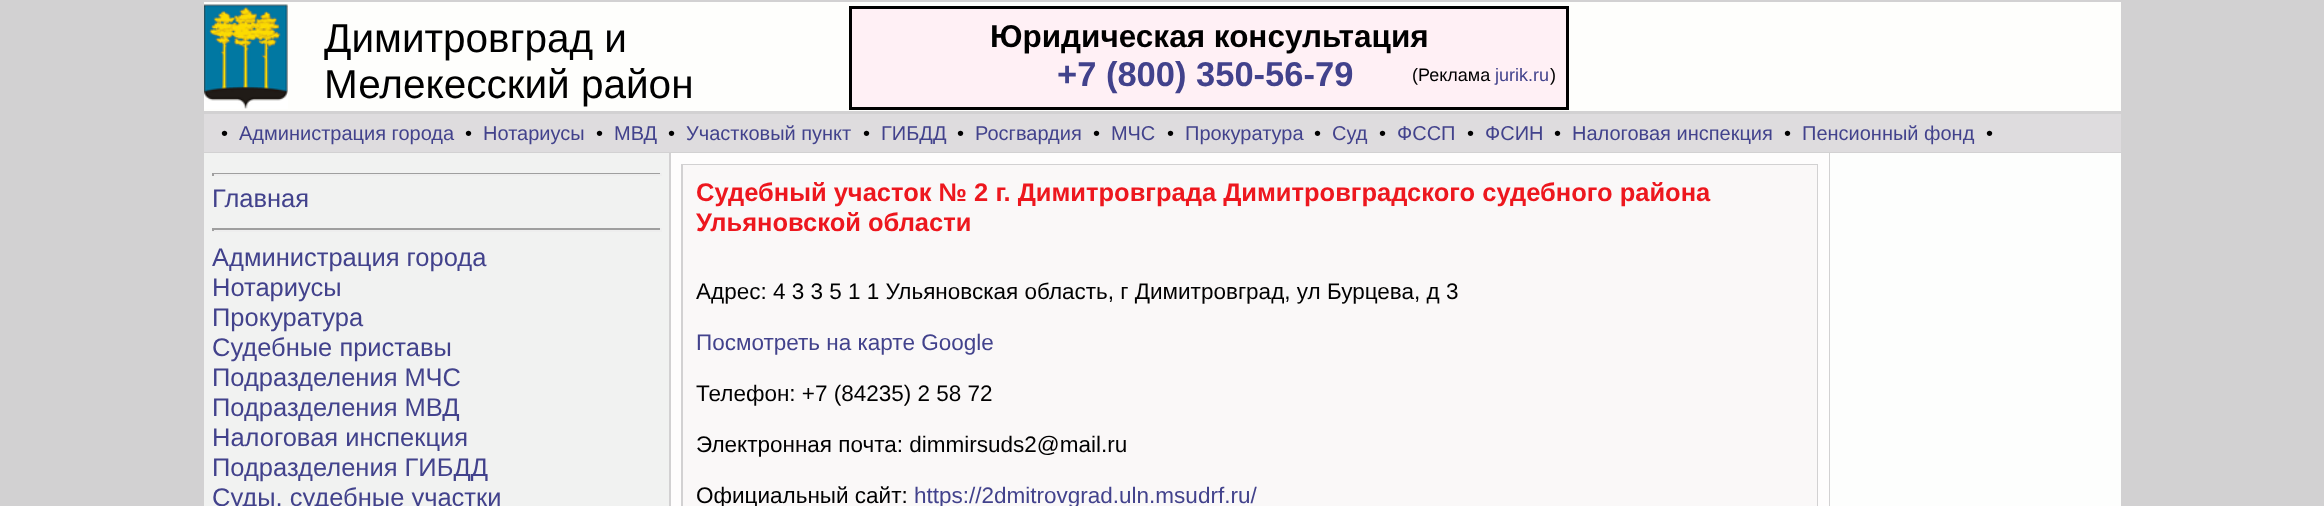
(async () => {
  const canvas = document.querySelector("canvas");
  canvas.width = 2324;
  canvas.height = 506;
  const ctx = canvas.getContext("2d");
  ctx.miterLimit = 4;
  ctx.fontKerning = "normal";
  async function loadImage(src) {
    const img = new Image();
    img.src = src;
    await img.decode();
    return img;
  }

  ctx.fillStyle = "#d2d1d2";
  ctx.fillRect(0, 0, 2324, 506);
  ctx.fillStyle = "#fefefc";
  ctx.fillRect(204, 2, 1917, 109);
  ctx.drawImage(await loadImage("img/1.png"), 204, 4, 84, 105);
  ctx.fillStyle = "#fff0f5";
  ctx.beginPath();
  ctx.rect(850.5, 7.5, 717, 101);
  ctx.fill();
  ctx.strokeStyle = "#000000";
  ctx.lineWidth = 3;
  ctx.stroke();
  for (const [x, y, w, h, color] of [
    [204, 114, 1917, 38, "#dedcde"],
    [204, 153, 465, 353, "#f1f2f1"],
    [212, 173, 450, 1, "#9f9f9f"],
    [660, 173, 2, 3, "#eeeeee"],
    [212, 174, 450, 2, "#eeeeee"],
    [212, 173, 2, 3, "#9f9f9f"],
    [212, 228, 450, 2, "#9f9f9f"],
    [660, 228, 2, 3, "#eeeeee"],
    [212, 230, 450, 2, "#eeeeee"],
    [212, 228, 2, 3, "#9f9f9f"],
    [671, 153, 1158, 353, "#fefdfd"],
    [681, 164, 1137, 342, "#d2d1d2"],
    [683, 165, 1134, 341, "#faf8f8"],
    [1830, 153, 291, 353, "#fdfefd"],
  ]) {
    ctx.fillStyle = color;
    ctx.fillRect(x, y, w, h);
  }
  ctx.font = "40.5px Liberation Sans";
  ctx.fillStyle = "#000000";
  ctx.fillText("Димитровград и", 324, 52);
  ctx.fillText("Мелекесский район", 324, 98);
  ctx.font = "bold 31.5px Liberation Sans";
  ctx.fillText("Юридическая консультация", 990, 47);
  ctx.font = "bold 34.5px Liberation Sans";
  ctx.fillStyle = "#42428c";
  ctx.fillText("+7 (800) 350-56-79", 1057, 86);
  ctx.font = "18px Liberation Sans";
  ctx.fillStyle = "#000000";
  ctx.fillText("(Реклама", 1412, 81);
  ctx.fillStyle = "#42428c";
  ctx.fillText("jurik.ru", 1495, 81);
  ctx.fillStyle = "#000000";
  ctx.fillText(")", 1550, 81);
  ctx.font = "20px Liberation Sans";
  ctx.fillText("•", 221, 140);
  ctx.fillStyle = "#42428c";
  ctx.fillText("Администрация города", 239, 140);
  ctx.fillStyle = "#000000";
  ctx.fillText("•", 465, 140);
  ctx.fillStyle = "#42428c";
  ctx.fillText("Нотариусы", 483, 140);
  ctx.fillStyle = "#000000";
  ctx.fillText("•", 596, 140);
  ctx.fillStyle = "#42428c";
  ctx.fillText("МВД", 614, 140);
  ctx.fillStyle = "#000000";
  ctx.fillText("•", 668, 140);
  ctx.fillStyle = "#42428c";
  ctx.fillText("Участковый пункт", 686, 140);
  ctx.fillStyle = "#000000";
  ctx.fillText("•", 863, 140);
  ctx.fillStyle = "#42428c";
  ctx.fillText("ГИБДД", 881, 140);
  ctx.fillStyle = "#000000";
  ctx.fillText("•", 957, 140);
  ctx.fillStyle = "#42428c";
  ctx.fillText("Росгвардия", 975, 140);
  ctx.fillStyle = "#000000";
  ctx.fillText("•", 1093, 140);
  ctx.fillStyle = "#42428c";
  ctx.fillText("МЧС", 1111, 140);
  ctx.fillStyle = "#000000";
  ctx.fillText("•", 1167, 140);
  ctx.fillStyle = "#42428c";
  ctx.fillText("Прокуратура", 1185, 140);
  ctx.fillStyle = "#000000";
  ctx.fillText("•", 1314, 140);
  ctx.fillStyle = "#42428c";
  ctx.fillText("Суд", 1332, 140);
  ctx.fillStyle = "#000000";
  ctx.fillText("•", 1379, 140);
  ctx.fillStyle = "#42428c";
  ctx.fillText("ФССП", 1397, 140);
  ctx.fillStyle = "#000000";
  ctx.fillText("•", 1467, 140);
  ctx.fillStyle = "#42428c";
  ctx.fillText("ФСИН", 1485, 140);
  ctx.fillStyle = "#000000";
  ctx.fillText("•", 1554, 140);
  ctx.fillStyle = "#42428c";
  ctx.fillText("Налоговая инспекция", 1572, 140);
  ctx.fillStyle = "#000000";
  ctx.fillText("•", 1784, 140);
  ctx.fillStyle = "#42428c";
  ctx.fillText("Пенсионный фонд", 1802, 140);
  ctx.fillStyle = "#000000";
  ctx.fillText("•", 1986, 140);
  ctx.font = "25.5px Liberation Sans";
  ctx.fillStyle = "#42428c";
  for (const [text, x, y] of [
    ["Главная", 212, 207],
    ["Администрация города", 212, 266],
    ["Нотариусы", 212, 296],
    ["Прокуратура", 212, 326],
    ["Судебные приставы", 212, 356],
    ["Подразделения МЧС", 212, 386],
    ["Подразделения МВД", 212, 416],
    ["Налоговая инспекция", 212, 446],
    ["Подразделения ГИБДД", 212, 476],
    ["Суды, судебные участки", 212, 506],
  ]) {
    ctx.fillText(text, x, y);
  }
  ctx.font = "bold 25.5px Liberation Sans";
  ctx.fillStyle = "#ed171e";
  ctx.fillText("Судебный участок № 2 г. Димитровграда Димитровградского судебного района", 696, 201);
  ctx.fillText("Ульяновской области", 696, 231);
  ctx.font = "22.5px Liberation Sans";
  ctx.fillStyle = "#000000";
  ctx.fillText("Адрес: 4 3 3 5 1 1 Ульяновская область, г Димитровград, ул Бурцева, д 3", 696, 299);
  ctx.fillStyle = "#42428c";
  ctx.fillText("Посмотреть на карте Google", 696, 350);
  ctx.fillStyle = "#000000";
  for (const [text, x, y] of [
    ["Телефон: +7 (84235) 2 58 72", 696, 401],
    ["Электронная почта: dimmirsuds2@mail.ru", 696, 452],
    ["Официальный сайт:", 696, 503],
  ]) {
    ctx.fillText(text, x, y);
  }
  ctx.fillStyle = "#42428c";
  ctx.fillText("https://2dmitrovgrad.uln.msudrf.ru/", 914, 503);
})();
